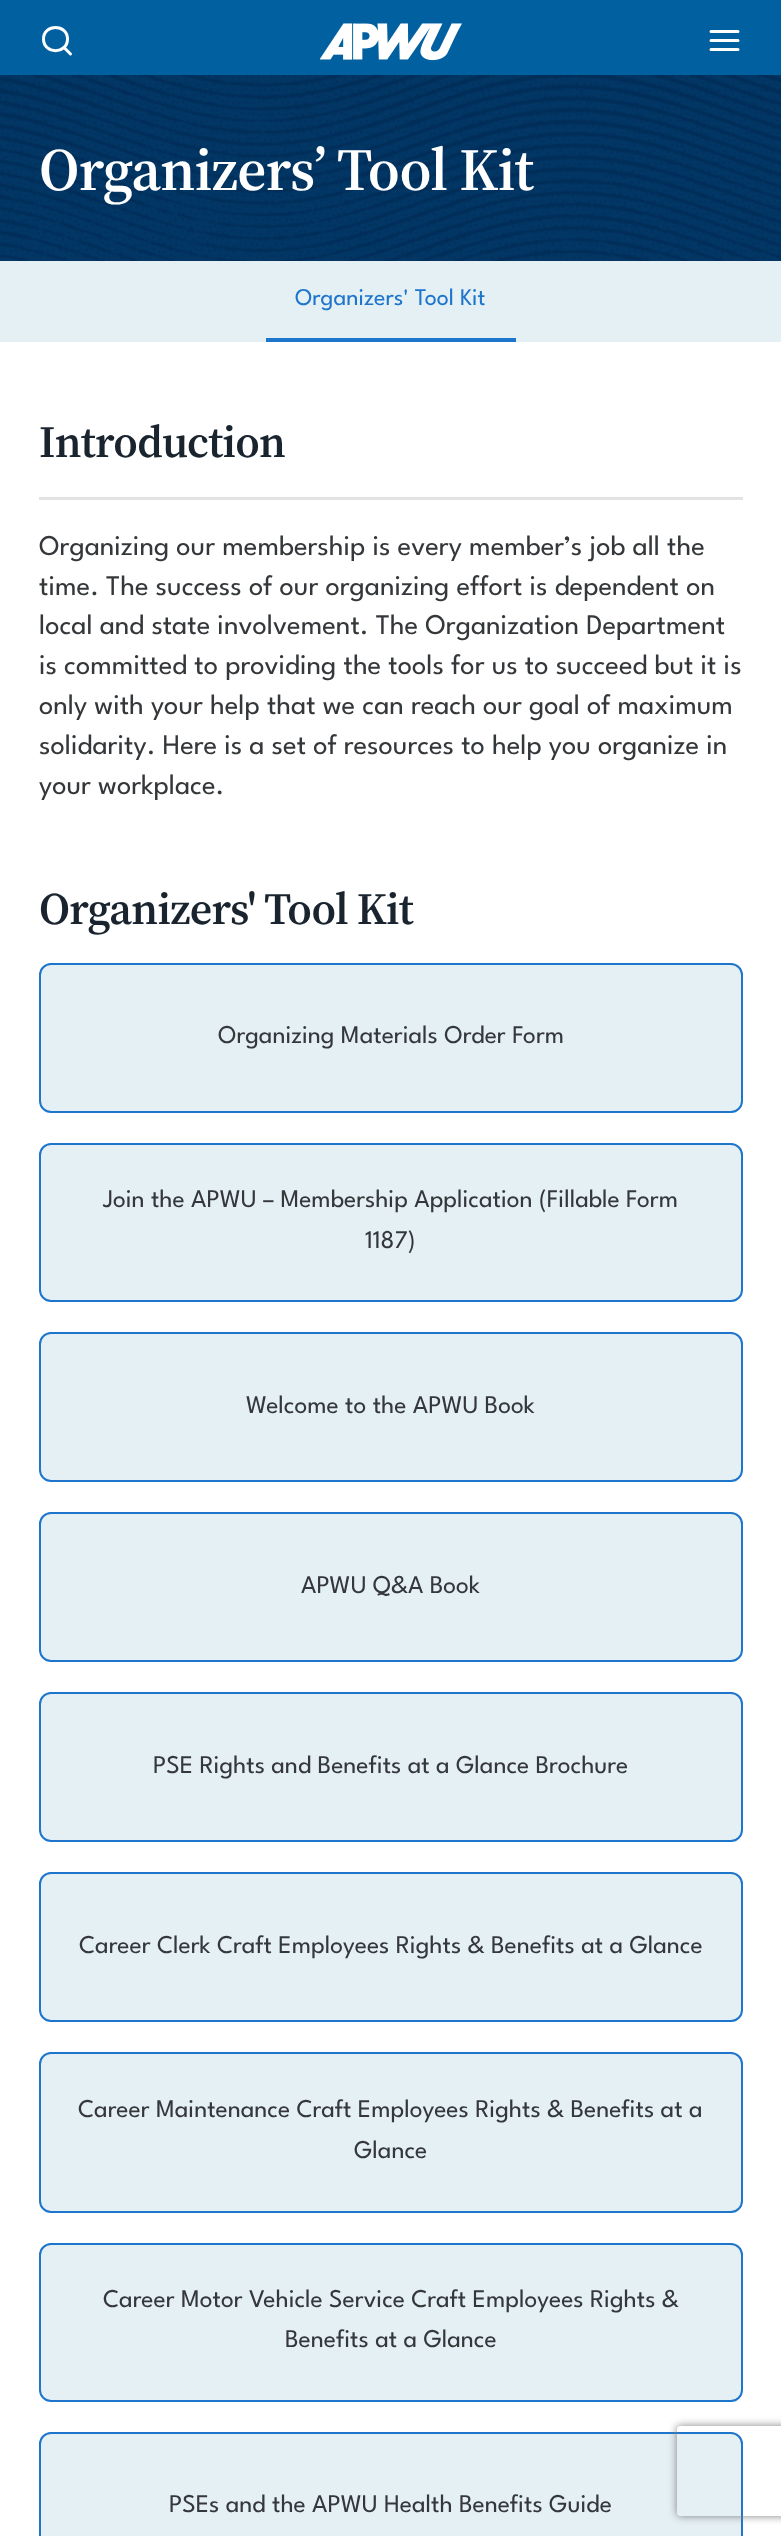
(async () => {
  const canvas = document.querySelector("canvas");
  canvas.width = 781;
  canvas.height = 2536;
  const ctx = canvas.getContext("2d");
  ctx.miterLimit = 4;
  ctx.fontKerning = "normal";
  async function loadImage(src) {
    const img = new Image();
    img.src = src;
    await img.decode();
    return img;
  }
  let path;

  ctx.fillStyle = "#ffffff";
  ctx.fillRect(0, 0, 781, 2536);
  ctx.fillStyle = "#0060a0";
  ctx.fillRect(0, 0, 781, 75);
  path = new Path2D("M70.5 54L64 47.5M67.5 39C67.5 54.5 43.5 54.5 43.5 39C43.5 23.5 67.5 23.5 67.5 39Z");
  ctx.strokeStyle = "#ffffff";
  ctx.lineWidth = 3;
  ctx.lineCap = "round";
  ctx.lineJoin = "round";
  ctx.stroke(path);
  ctx.drawImage(await loadImage("img/1.png"), 320, 23, 142, 38);
  path = new Path2D("M711 40.5H738M711 31.5H738M711 49.5H738");
  ctx.stroke(path);
  ctx.drawImage(await loadImage("img/2.png"), 0, 75, 781, 186);
  for (const [x, y, w, h, color] of [
    [0, 261, 781, 81, "#e5f0f5"],
    [266, 338, 250, 4, "#1d75cc"],
    [39, 497, 704, 3, "#e2e3e5"],
  ]) {
    ctx.fillStyle = color;
    ctx.fillRect(x, y, w, h);
  }
  ctx.fillStyle = "#e5f0f5";
  ctx.beginPath();
  ctx.roundRect(40, 964, 702, 148, 11);
  ctx.fill();
  ctx.strokeStyle = "#1d75cc";
  ctx.lineWidth = 2;
  ctx.lineJoin = "miter";
  ctx.stroke();
  ctx.beginPath();
  ctx.roundRect(40, 1144, 702, 157, 11);
  ctx.fill();
  ctx.stroke();
  ctx.beginPath();
  ctx.roundRect(40, 1333, 702, 148, 11);
  ctx.fill();
  ctx.stroke();
  ctx.beginPath();
  ctx.roundRect(40, 1513, 702, 148, 11);
  ctx.fill();
  ctx.stroke();
  ctx.beginPath();
  ctx.roundRect(40, 1693, 702, 148, 11);
  ctx.fill();
  ctx.stroke();
  ctx.beginPath();
  ctx.roundRect(40, 1873, 702, 148, 11);
  ctx.fill();
  ctx.stroke();
  ctx.beginPath();
  ctx.roundRect(40, 2053, 702, 159, 11);
  ctx.fill();
  ctx.stroke();
  ctx.beginPath();
  ctx.roundRect(40, 2244, 702, 157, 11);
  ctx.fill();
  ctx.stroke();
  ctx.beginPath();
  ctx.roundRect(40, 2433, 702, 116, 11);
  ctx.fill();
  ctx.stroke();
  ctx.save();
  path = new Path2D("M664 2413H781V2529H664ZM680 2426H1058C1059.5 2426 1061 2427.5 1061 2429V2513C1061 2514.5 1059.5 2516 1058 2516H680C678.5 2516 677 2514.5 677 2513V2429C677 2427.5 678.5 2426 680 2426Z");
  ctx.clip(path, "evenodd");
  ctx.fillStyle = "#808080";
  ctx.filter = "blur(4px)";
  ctx.beginPath();
  ctx.roundRect(677, 2426, 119, 90, 3);
  ctx.fill();
  ctx.filter = "none";
  ctx.restore();
  ctx.letterSpacing = "-0.75px";
  ctx.font = "600 60px 'Source Serif 4'";
  ctx.fillStyle = "#ffffff";
  ctx.fillText("Organizers’ Tool Kit", 39, 190);
  ctx.letterSpacing = "0px";
  ctx.font = "24px League Spartan";
  ctx.fillStyle = "#1d75cc";
  ctx.fillText("Organizers' Tool Kit", 295, 305);
  ctx.letterSpacing = "-0.75px";
  ctx.font = "600 45px 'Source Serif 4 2'";
  ctx.fillStyle = "#19242e";
  ctx.fillText("Introduction", 39, 457);
  ctx.letterSpacing = "0px";
  ctx.font = "28.5px League Spartan";
  ctx.fillStyle = "#35383b";
  for (const [text, x, y] of [
    ["Organizing our membership is every member’s job all the", 39, 555],
    ["time. The success of our organizing effort is dependent on", 39, 595],
    ["local and state involvement. The Organization Department", 39, 634],
    ["is committed to providing the tools for us to succeed but it is", 39, 674],
    ["only with your help that we can reach our goal of maximum", 39, 714],
    ["solidarity. Here is a set of resources to help you organize in", 39, 754],
    ["your workplace.", 39, 794],
  ]) {
    ctx.fillText(text, x, y);
  }
  ctx.letterSpacing = "-0.75px";
  ctx.font = "600 45px 'Source Serif 4 2'";
  ctx.fillStyle = "#19242e";
  ctx.fillText("Organizers' Tool Kit", 39, 924);
  ctx.letterSpacing = "0px";
  ctx.font = "25.5px League Spartan";
  ctx.fillStyle = "#35383b";
  for (const [text, x, y] of [
    ["Organizing Materials Order Form", 218, 1043],
    ["Join the APWU – Membership Application (Fillable Form", 103, 1207],
    ["1187)", 365, 1248],
    ["Welcome to the APWU Book", 246, 1413],
    ["APWU Q&A Book", 301, 1593],
    ["PSE Rights and Benefits at a Glance Brochure", 153, 1773],
    ["Career Clerk Craft Employees Rights & Benefits at a Glance", 79, 1953],
    ["Career Maintenance Craft Employees Rights & Benefits at a", 78, 2117],
    ["Glance", 354, 2158],
    ["Career Motor Vehicle Service Craft Employees Rights &", 103, 2307],
    ["Benefits at a Glance", 285, 2347],
    ["PSEs and the APWU Health Benefits Guide", 169, 2512],
  ]) {
    ctx.fillText(text, x, y);
  }
})();
